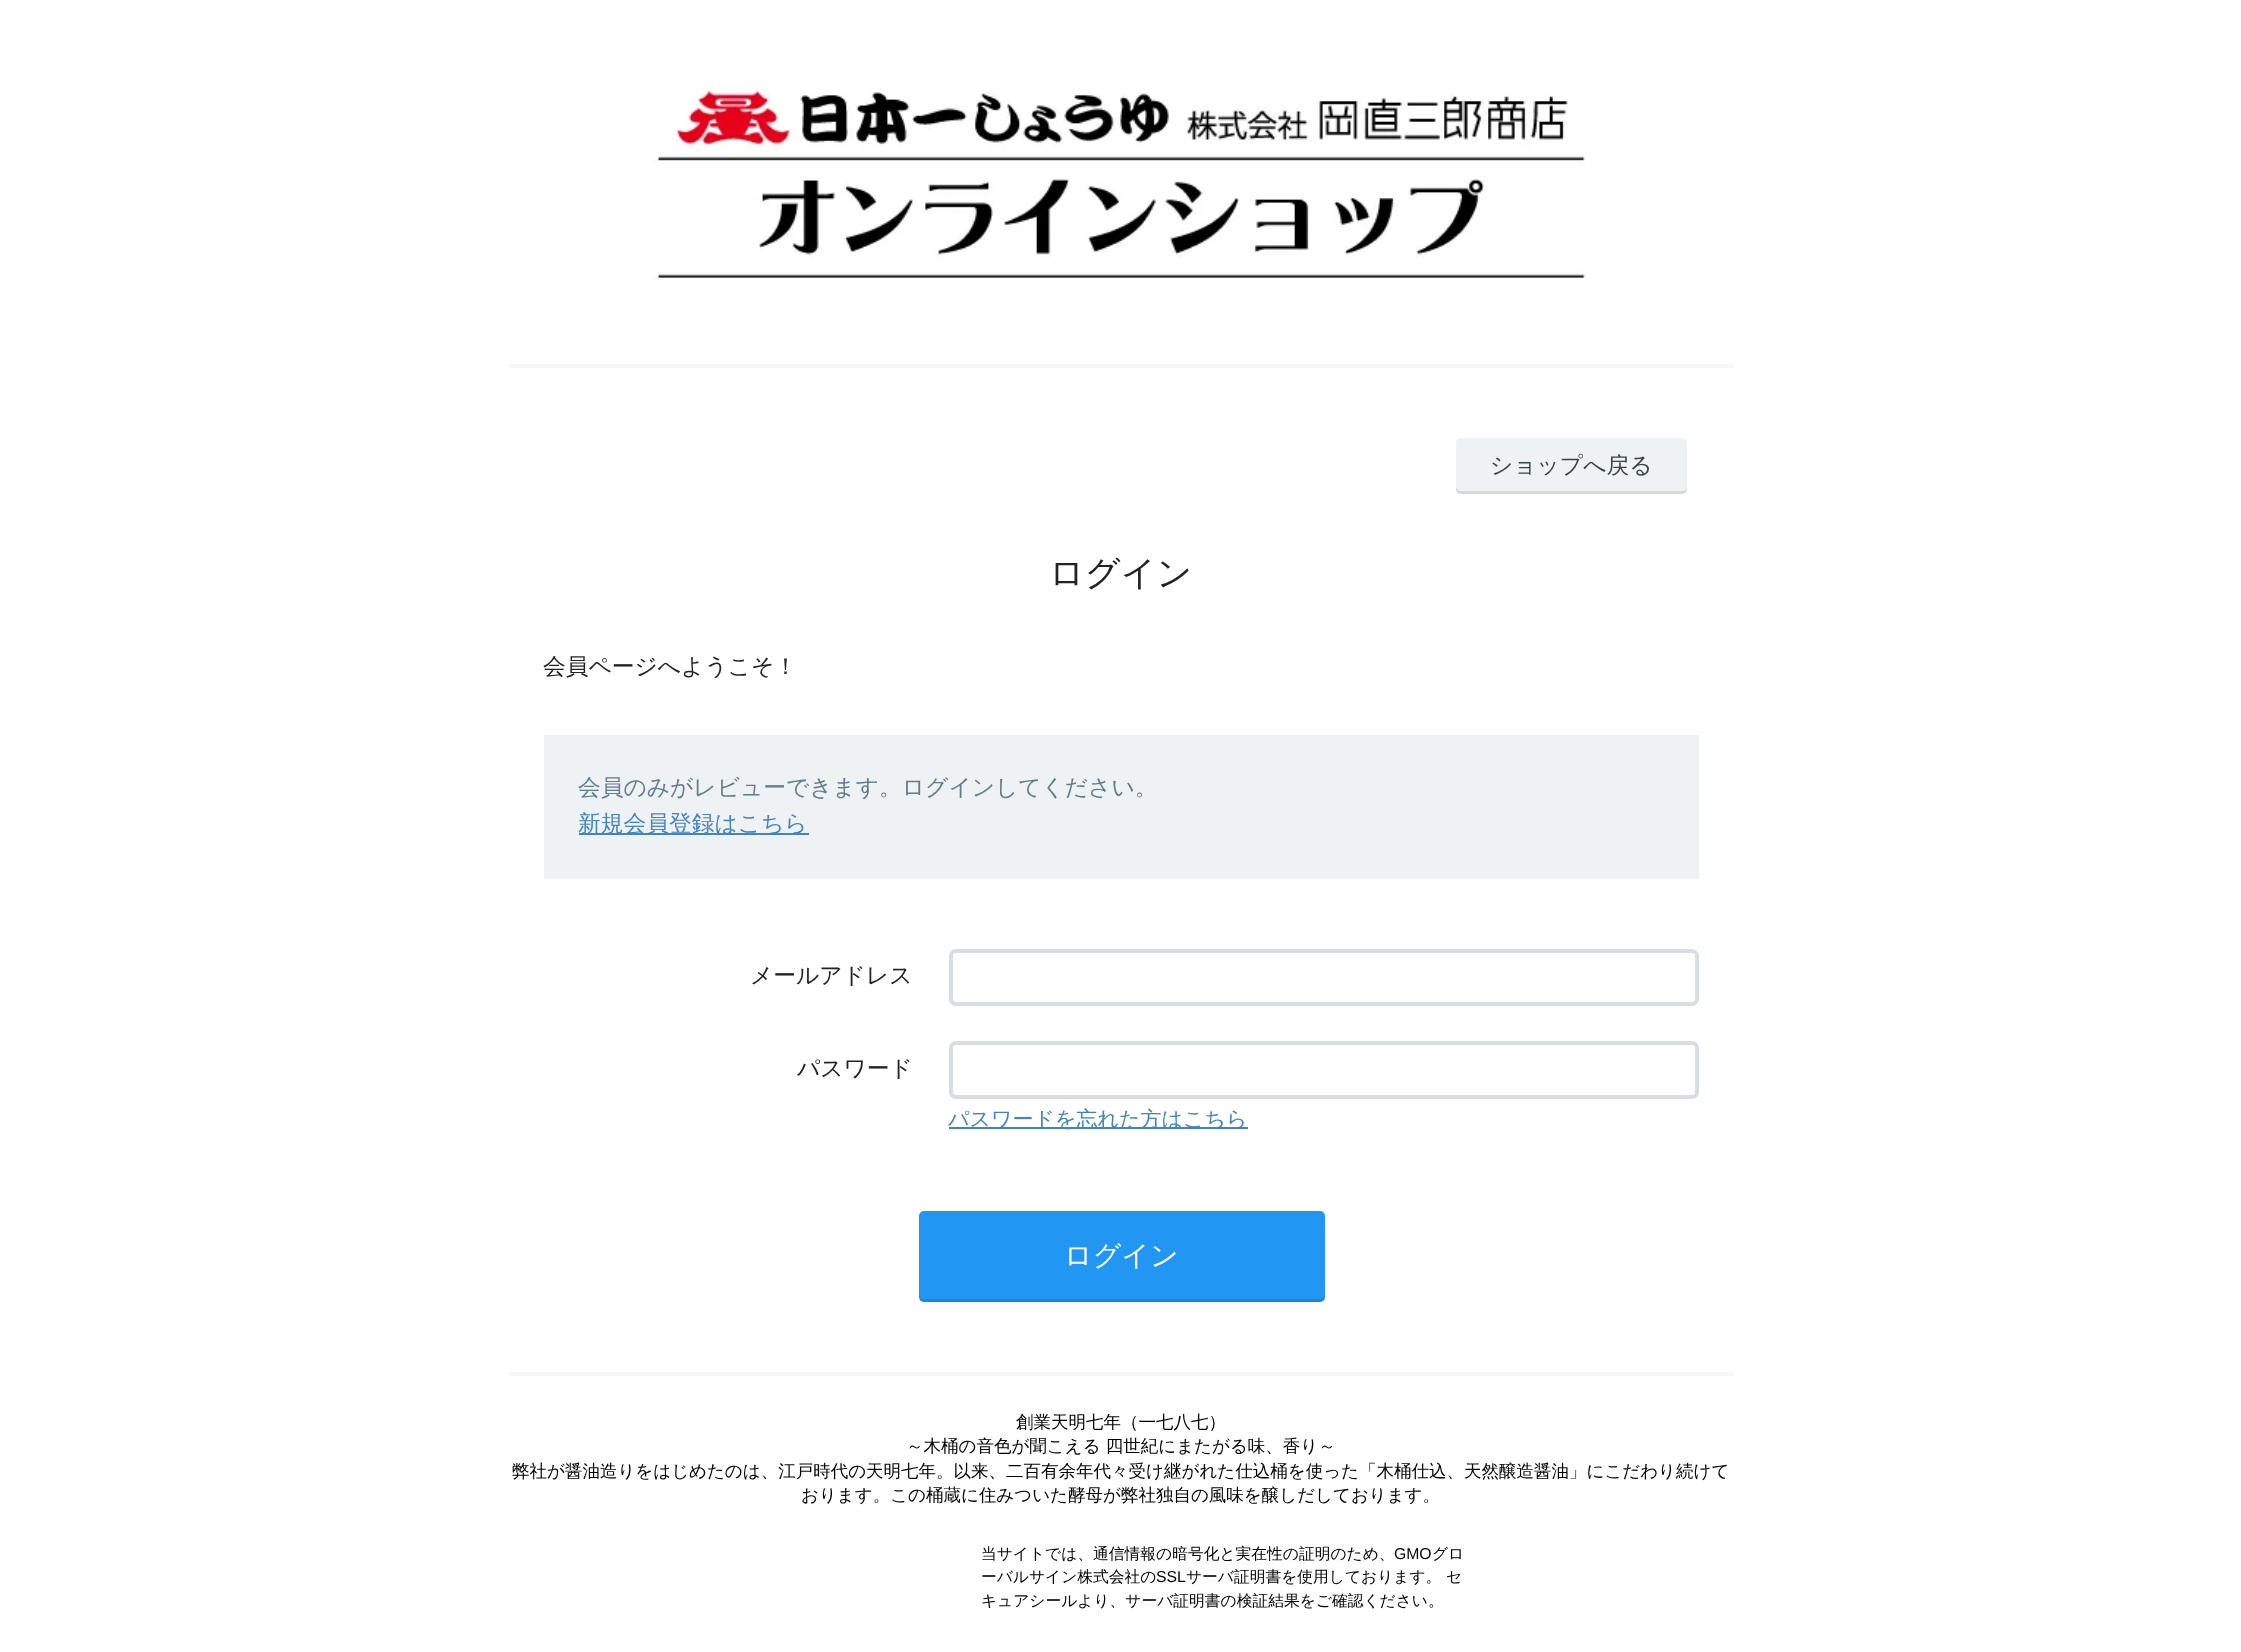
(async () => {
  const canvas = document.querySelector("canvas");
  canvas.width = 2241;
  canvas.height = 1652;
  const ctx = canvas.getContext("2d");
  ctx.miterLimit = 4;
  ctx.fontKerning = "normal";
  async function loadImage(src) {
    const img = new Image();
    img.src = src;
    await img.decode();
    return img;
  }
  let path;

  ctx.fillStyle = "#ffffff";
  ctx.fillRect(0, 0, 2241, 1652);
  ctx.drawImage(await loadImage("img/1.png"), 654, 82, 932, 198);
  ctx.fillStyle = "#f6f6f6";
  ctx.fillRect(509, 364, 1225, 4);
  ctx.fillRect(509, 1372, 1225, 4);
  ctx.fillStyle = "#eff2f4";
  ctx.beginPath();
  ctx.roundRect(1456, 438, 231, 56, 5);
  ctx.fill();
  ctx.fillStyle = "rgba(0, 0, 0, 0.1)";
  path = new Path2D("M1456 486V489C1456 492 1458 494 1461 494H1682C1685 494 1687 492 1687 489V486C1687 489 1685 491 1682 491H1461C1458 491 1456 489 1456 486Z");
  ctx.fill(path);
  ctx.fillStyle = "#eff2f4";
  ctx.fillRect(544, 735, 1155, 144);
  ctx.fillStyle = "#4183c4";
  ctx.fillRect(579, 833, 230, 2);
  ctx.beginPath();
  ctx.roundRect(951, 951, 746, 53, 5);
  ctx.strokeStyle = "#d7dee2";
  ctx.lineWidth = 4;
  ctx.stroke();
  ctx.beginPath();
  ctx.roundRect(951, 1043, 746, 54, 5);
  ctx.stroke();
  ctx.fillRect(949, 1127, 299, 2);
  ctx.fillStyle = "#2196f3";
  ctx.beginPath();
  ctx.roundRect(919, 1211, 406, 91, 5);
  ctx.fill();
  ctx.fillStyle = "rgba(0, 0, 0, 0.1)";
  path = new Path2D("M919 1294V1297C919 1300 921 1302 924 1302H1320C1323 1302 1325 1300 1325 1297V1294C1325 1297 1322 1299 1320 1299H924C921 1299 919 1297 919 1294Z");
  ctx.fill(path);
  ctx.font = "500 22.75px WenQuanYi Zen Hei";
  ctx.fillStyle = "#35454c";
  ctx.fillText("ショップへ戻る", 1490, 473);
  ctx.font = "500 35px WenQuanYi Zen Hei";
  ctx.fillStyle = "#222222";
  ctx.fillText("ログイン", 1049, 585);
  ctx.font = "500 22.75px WenQuanYi Zen Hei";
  ctx.fillText("会員ページへようこそ！", 543, 674);
  ctx.fillStyle = "#607d8b";
  ctx.fillText("会員のみがレビューできます。ログインしてください。", 578, 795);
  ctx.fillStyle = "#4183c4";
  ctx.fillText("新規会員登録はこちら", 578, 831);
  ctx.fillStyle = "#222222";
  ctx.fillText("メールアドレス", 750, 983);
  ctx.fillText("パスワード", 797, 1076);
  ctx.font = "500 21px WenQuanYi Zen Hei";
  ctx.fillStyle = "#4183c4";
  ctx.fillText("パスワードを忘れた方はこちら", 948, 1126);
  ctx.font = "500 28px WenQuanYi Zen Hei";
  ctx.fillStyle = "#ffffff";
  ctx.fillText("ログイン", 1064, 1265);
  ctx.font = "500 17.5px WenQuanYi Zen Hei";
  ctx.fillStyle = "#000000";
  for (const [text, x, y] of [
    ["創業天明七年（一七八七）", 1016, 1428],
    ["～木桶の音色が聞こえる 四世紀にまたがる味、香り～", 906, 1452],
    ["弊社が醤油造りをはじめたのは、江戸時代の天明七年。以来、二百有余年代々受け継がれた仕込桶を使った「木桶仕込、天然醸造醤油」にこだわり続けて", 512, 1477],
    ["おります。この桶蔵に住みついた酵母が弊社独自の風味を醸しだしております。", 801, 1501],
  ]) {
    ctx.fillText(text, x, y);
  }
  ctx.font = "500 15.75px WenQuanYi Zen Hei";
  ctx.fillText("当サイトでは、通信情報の暗号化と実在性の証明のため、", 981, 1559);
  ctx.font = "15.75px Liberation Sans";
  ctx.fillText("GMO", 1394, 1559);
  ctx.font = "500 15.75px WenQuanYi Zen Hei";
  ctx.fillText("グロ", 1432, 1559);
  ctx.fillText("ーバルサイン株式会社の", 981, 1582);
  ctx.font = "15.75px Liberation Sans";
  ctx.fillText("SSL", 1156, 1582);
  ctx.font = "500 15.75px WenQuanYi Zen Hei";
  ctx.fillText("サーバ証明書を使用しております。 セ", 1186, 1582);
  ctx.fillText("キュアシールより、サーバ証明書の検証結果をご確認ください。", 981, 1606);
})();
